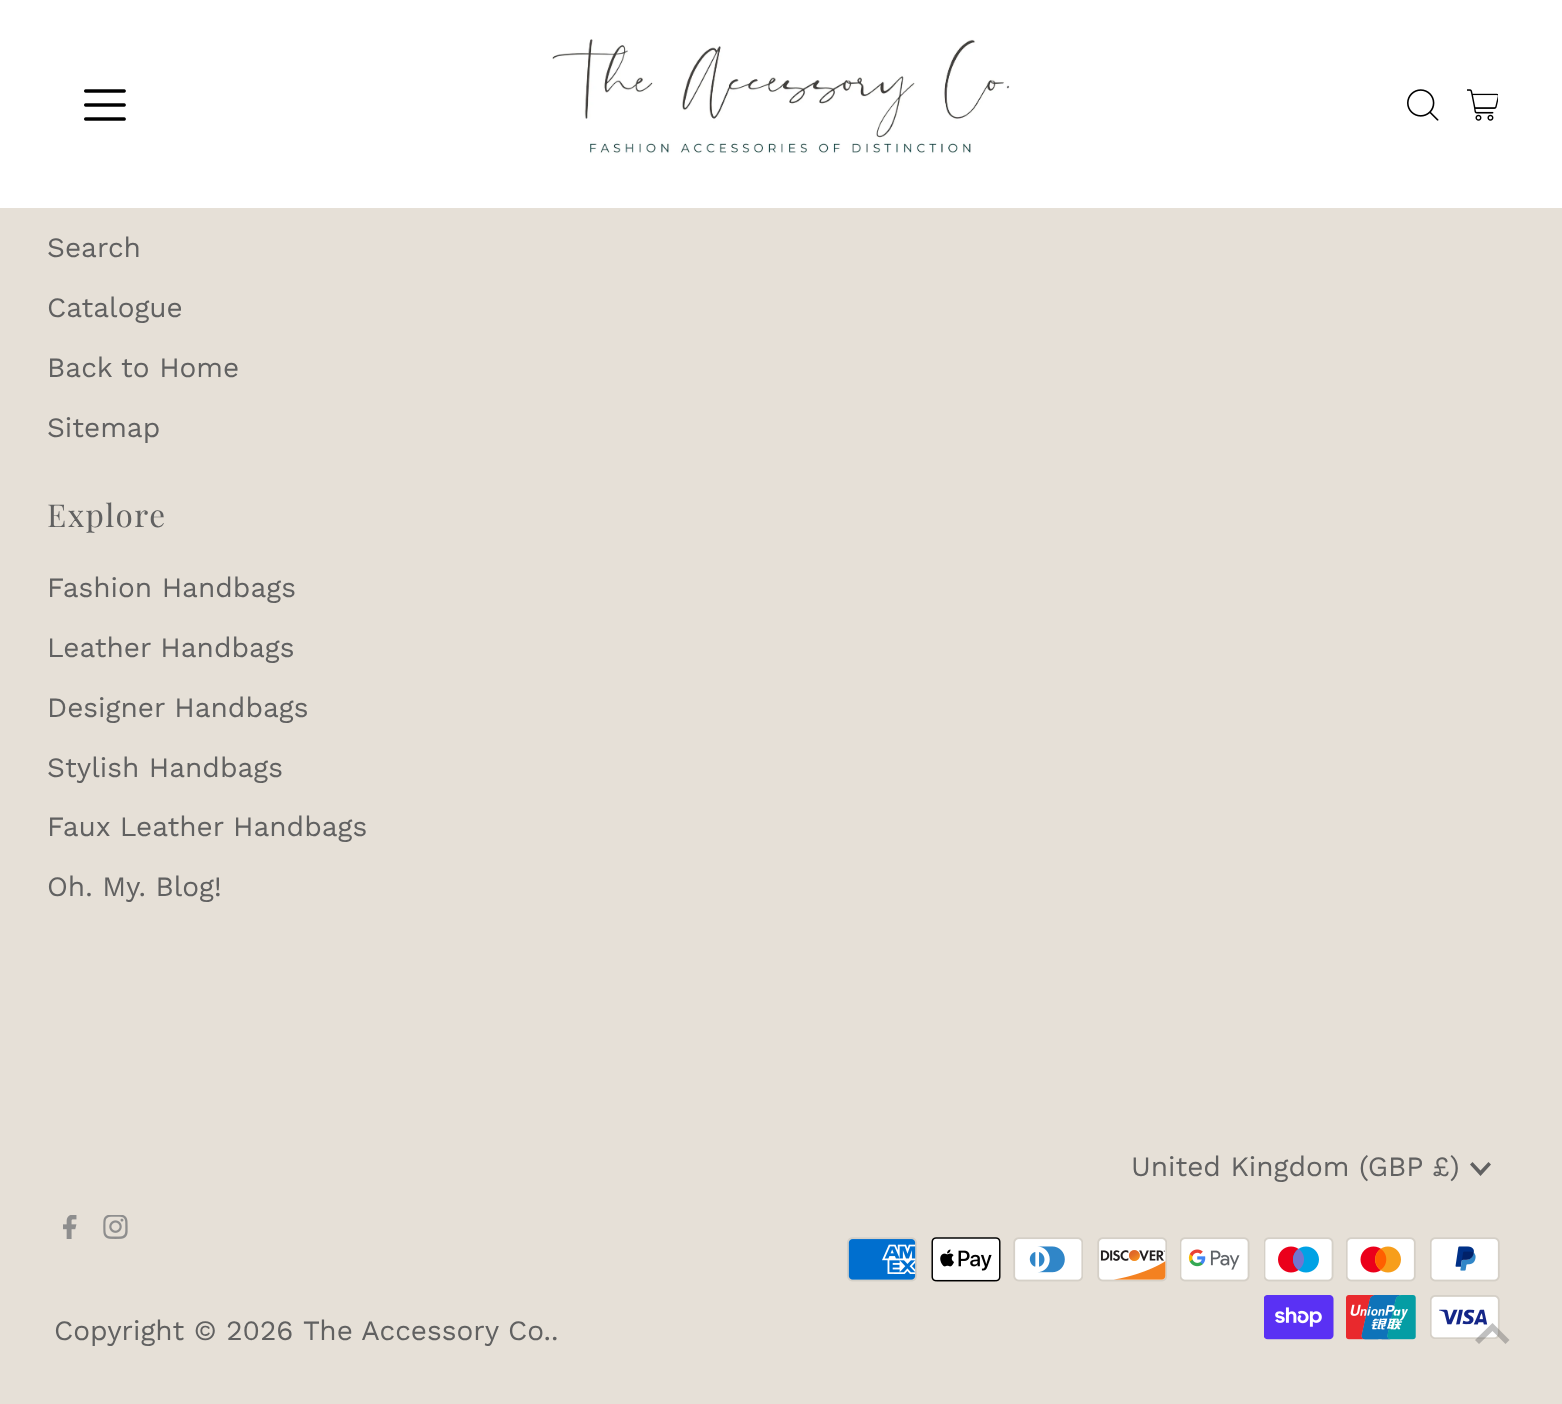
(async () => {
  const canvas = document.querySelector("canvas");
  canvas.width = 1562;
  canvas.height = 1404;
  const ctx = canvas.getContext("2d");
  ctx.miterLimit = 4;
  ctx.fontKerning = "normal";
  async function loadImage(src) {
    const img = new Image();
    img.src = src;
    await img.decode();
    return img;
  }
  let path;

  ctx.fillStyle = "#e6e0d7";
  ctx.fillRect(0, 0, 1562, 1404);
  ctx.fillStyle = "#ffffff";
  ctx.fillRect(0, 0, 1562, 208);
  ctx.drawImage(await loadImage("img/1.png"), 84, 89, 42, 32);
  ctx.drawImage(await loadImage("img/2.png"), 552, 39, 458, 115);
  ctx.drawImage(await loadImage("img/3.png"), 1407, 89, 32, 32);
  ctx.drawImage(await loadImage("img/4.png"), 1467, 89, 31, 32);
  ctx.fillStyle = "#616161";
  path = new Path2D("M1488.5 1162L1480.5 1170.5L1472.5 1162L1470 1164.5L1480.5 1176L1491 1164.5Z");
  ctx.fill(path);
  ctx.drawImage(await loadImage("img/5.png"), 847, 1237, 70, 45);
  ctx.drawImage(await loadImage("img/6.png"), 931, 1237, 70, 45);
  ctx.drawImage(await loadImage("img/7.png"), 1013, 1237, 70, 45);
  ctx.drawImage(await loadImage("img/8.png"), 1097, 1237, 70, 45);
  ctx.drawImage(await loadImage("img/9.png"), 1180, 1237, 70, 45);
  ctx.drawImage(await loadImage("img/10.png"), 1264, 1237, 70, 45);
  ctx.drawImage(await loadImage("img/11.png"), 1346, 1237, 70, 45);
  ctx.drawImage(await loadImage("img/12.png"), 1430, 1237, 70, 45);
  ctx.drawImage(await loadImage("img/13.png"), 1264, 1295, 70, 45);
  ctx.drawImage(await loadImage("img/14.png"), 1346, 1295, 70, 45);
  ctx.drawImage(await loadImage("img/15.png"), 1430, 1295, 70, 44);
  ctx.drawImage(await loadImage("img/16.png"), 63, 1215, 14, 24);
  ctx.drawImage(await loadImage("img/17.png"), 103, 1215, 25, 24);
  ctx.fillStyle = "rgba(97, 97, 97, 0.4)";
  path = new Path2D("M1492.5 1323L1475 1340L1479 1344L1492.5 1331L1505.5 1344L1509.5 1340Z");
  ctx.fill(path);
  ctx.font = "28px Work Sans";
  ctx.fillStyle = "#616161";
  for (const [text, x, y] of [
    ["Search", 47, 257],
    ["Catalogue", 47, 317],
    ["Back to Home", 47, 377],
    ["Sitemap", 47, 437],
  ]) {
    ctx.fillText(text, x, y);
  }
  ctx.letterSpacing = "1.5px";
  ctx.font = "31.5px Playfair Display";
  ctx.fillText("Explore", 47, 527);
  ctx.letterSpacing = "0px";
  ctx.font = "28px Work Sans";
  for (const [text, x, y] of [
    ["Fashion Handbags", 47, 597],
    ["Leather Handbags", 47, 657],
    ["Designer Handbags", 47, 717],
    ["Stylish Handbags", 47, 777],
    ["Faux Leather Handbags", 47, 836],
    ["Oh. My. Blog!", 47, 896],
    ["United Kingdom (GBP £)", 1131, 1176],
    ["Copyright © 2026", 54, 1340],
    ["The Accessory Co..", 303, 1340],
  ]) {
    ctx.fillText(text, x, y);
  }
})();
